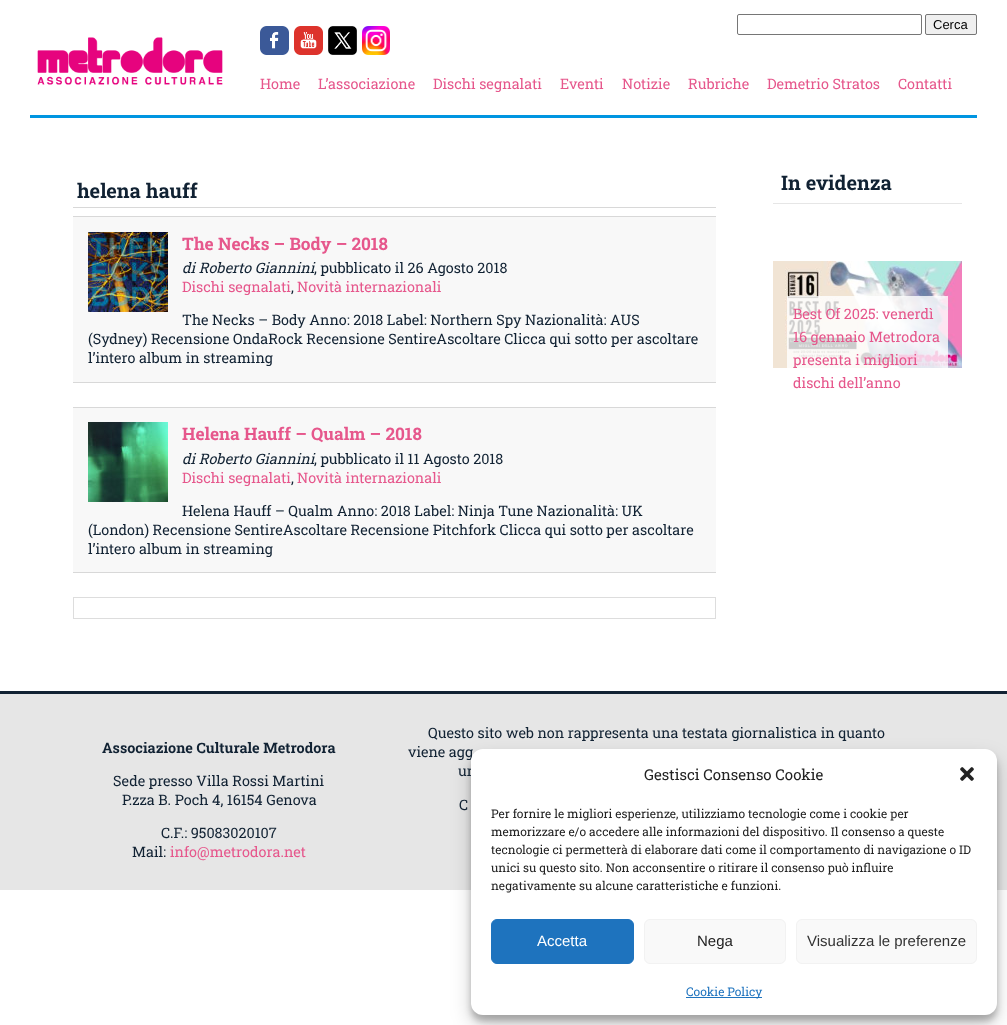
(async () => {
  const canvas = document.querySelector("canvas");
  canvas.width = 1007;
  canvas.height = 1025;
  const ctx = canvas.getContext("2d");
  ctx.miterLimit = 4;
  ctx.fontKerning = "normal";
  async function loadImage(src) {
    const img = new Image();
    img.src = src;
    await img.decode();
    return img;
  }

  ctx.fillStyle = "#ffffff";
  ctx.fillRect(0, 0, 1007, 1025);
  ctx.fillStyle = "#0095e1";
  ctx.fillRect(30, 115, 947, 3);
  ctx.beginPath();
  ctx.roundRect(737.5, 14.5, 184, 20, 1.5);
  ctx.strokeStyle = "#767676";
  ctx.stroke();
  ctx.fillStyle = "#efefef";
  ctx.beginPath();
  ctx.roundRect(925.5, 14.5, 51, 20, 1.5);
  ctx.fill();
  ctx.stroke();
  ctx.drawImage(await loadImage("img/1.png"), 37, 37, 186, 48);
  ctx.drawImage(await loadImage("img/2.png"), 260, 26, 29, 29);
  ctx.drawImage(await loadImage("img/3.png"), 294, 26, 29, 29);
  ctx.drawImage(await loadImage("img/4.png"), 328, 26, 29, 29);
  ctx.drawImage(await loadImage("img/5.png"), 362, 26, 28, 29);
  for (const [x, y, w, h, color] of [
    [73, 207, 643, 1, "#d8d8d8"],
    [73, 217, 643, 165, "#f8f8f8"],
    [73, 216, 643, 1, "#d8d8d8"],
    [73, 382, 643, 1, "#d8d8d8"],
  ]) {
    ctx.fillStyle = color;
    ctx.fillRect(x, y, w, h);
  }
  ctx.drawImage(await loadImage("img/6.png"), 88, 232, 80, 80);
  for (const [x, y, w, h, color] of [
    [73, 408, 643, 164, "#f8f8f8"],
    [73, 407, 643, 1, "#d8d8d8"],
    [73, 572, 643, 1, "#d8d8d8"],
  ]) {
    ctx.fillStyle = color;
    ctx.fillRect(x, y, w, h);
  }
  ctx.drawImage(await loadImage("img/7.png"), 88, 422, 80, 80);
  ctx.strokeStyle = "#dddddd";
  ctx.strokeRect(73.5, 597.5, 642, 21);
  ctx.fillStyle = "#e6e6e6";
  ctx.fillRect(773, 203, 189, 1);
  ctx.drawImage(await loadImage("img/8.png"), 773, 261, 189, 107);
  for (const [x, y, w, h, color] of [
    [787, 296, 161, 72, "rgba(255, 255, 255, 0.8)"],
    [0, 694, 1007, 196, "#e6e6e6"],
    [0, 691, 1007, 3, "#112233"],
  ]) {
    ctx.fillStyle = color;
    ctx.fillRect(x, y, w, h);
  }
  ctx.fillStyle = "rgba(0, 0, 0, 0.23)";
  ctx.filter = "blur(3px)";
  ctx.beginPath();
  ctx.roundRect(471, 755, 526, 266, 12);
  ctx.fill();
  ctx.filter = "none";
  ctx.fillStyle = "rgba(0, 0, 0, 0.19)";
  ctx.filter = "blur(10px)";
  ctx.beginPath();
  ctx.roundRect(471, 759, 526, 266, 12);
  ctx.fill();
  ctx.filter = "none";
  ctx.font = "13px Liberation Sans";
  ctx.fillStyle = "#000000";
  ctx.fillText("Cerca", 933, 29);
  ctx.font = "14.4px Roboto Slab";
  ctx.fillStyle = "#e6578c";
  for (const [text, x, y] of [
    ["Home", 260, 89],
    ["L’associazione", 318, 89],
    ["Dischi segnalati", 433, 89],
    ["Eventi", 560, 89],
    ["Notizie", 622, 89],
    ["Rubriche", 688, 89],
    ["Demetrio Stratos", 767, 89],
    ["Contatti", 898, 89],
  ]) {
    ctx.fillText(text, x, y);
  }
  ctx.font = "bold 20px Roboto Slab";
  ctx.fillStyle = "#112233";
  ctx.fillText("helena hauff", 77, 198);
  ctx.font = "bold 17.25px Roboto Slab";
  ctx.fillStyle = "#e6578c";
  ctx.fillText("The Necks – Body – 2018", 182, 250);
  ctx.font = "italic 14.4px Roboto Slab";
  ctx.fillStyle = "#112233";
  ctx.fillText("di Roberto Giannini", 182, 273);
  ctx.font = "14.4px Roboto Slab";
  ctx.fillText(", pubblicato il 26 Agosto 2018", 314, 273);
  ctx.fillStyle = "#e6578c";
  ctx.fillText("Dischi segnalati", 182, 292);
  ctx.fillStyle = "#112233";
  ctx.fillText(",", 291, 292);
  ctx.fillStyle = "#e6578c";
  ctx.fillText("Novità internazionali", 297, 292);
  ctx.fillStyle = "#112233";
  for (const [text, x, y] of [
    ["The Necks – Body Anno: 2018 Label: Northern Spy Nazionalità: AUS", 182, 325],
    ["(Sydney) Recensione OndaRock Recensione SentireAscoltare Clicca qui sotto per ascoltare", 88, 344],
    ["l’intero album in streaming", 88, 363],
  ]) {
    ctx.fillText(text, x, y);
  }
  ctx.font = "bold 17.25px Roboto Slab";
  ctx.fillStyle = "#e6578c";
  ctx.fillText("Helena Hauff – Qualm – 2018", 182, 440);
  ctx.font = "italic 14.4px Roboto Slab";
  ctx.fillStyle = "#112233";
  ctx.fillText("di Roberto Giannini", 182, 464);
  ctx.font = "14.4px Roboto Slab";
  ctx.fillText(", pubblicato il 11 Agosto 2018", 314, 464);
  ctx.fillStyle = "#e6578c";
  ctx.fillText("Dischi segnalati", 182, 483);
  ctx.fillStyle = "#112233";
  ctx.fillText(",", 291, 483);
  ctx.fillStyle = "#e6578c";
  ctx.fillText("Novità internazionali", 297, 483);
  ctx.fillStyle = "#112233";
  for (const [text, x, y] of [
    ["Helena Hauff – Qualm Anno: 2018 Label: Ninja Tune Nazionalità: UK", 182, 516],
    ["(London) Recensione SentireAscoltare Recensione Pitchfork Clicca qui sotto per ascoltare", 88, 535],
    ["l’intero album in streaming", 88, 554],
  ]) {
    ctx.fillText(text, x, y);
  }
  ctx.font = "bold 20px Roboto Slab";
  ctx.fillText("In evidenza", 781, 190);
  ctx.font = "14.4px Roboto Slab";
  ctx.fillStyle = "#e6578c";
  for (const [text, x, y] of [
    ["Best Of 2025: venerdì", 793, 319],
    ["16 gennaio Metrodora", 793, 342],
    ["presenta i migliori", 793, 365],
    ["dischi dell’anno", 793, 388],
  ]) {
    ctx.fillText(text, x, y);
  }
  ctx.font = "bold 14.4px Roboto Slab";
  ctx.fillStyle = "#112233";
  ctx.fillText("Associazione Culturale Metrodora", 102, 753);
  ctx.font = "14.4px Roboto Slab";
  for (const [text, x, y] of [
    ["Sede presso Villa Rossi Martini", 113, 786],
    ["P.zza B. Poch 4, 16154 Genova", 122, 805],
    ["C.F.: 95083020107", 161, 838],
    ["Mail:", 132, 857],
  ]) {
    ctx.fillText(text, x, y);
  }
  ctx.fillStyle = "#e6578c";
  ctx.fillText("info@metrodora.net", 170, 857);
  ctx.fillStyle = "#112233";
  for (const [text, x, y] of [
    ["Questo sito web non rappresenta una testata giornalistica in quanto", 428, 738],
    ["viene agg", 408, 757],
    ["un", 458, 776],
    ["C", 459, 810],
  ]) {
    ctx.fillText(text, x, y);
  }
  ctx.fillStyle = "#ffffff";
  ctx.beginPath();
  ctx.roundRect(471, 749, 526, 266, 12);
  ctx.fill();
  ctx.font = "15px Roboto Slab";
  ctx.fillStyle = "#222222";
  ctx.fillText("Gestisci Consenso Cookie", 644, 780);
  ctx.drawImage(await loadImage("img/9.png"), 960, 767, 14, 14);
  ctx.font = "12px Roboto Slab";
  for (const [text, x, y] of [
    ["Per fornire le migliori esperienze, utilizziamo tecnologie come i cookie per", 491, 818],
    ["memorizzare e/o accedere alle informazioni del dispositivo. Il consenso a queste", 491, 836],
    ["tecnologie ci permetterà di elaborare dati come il comportamento di navigazione o ID", 491, 854],
    ["unici su questo sito. Non acconsentire o ritirare il consenso può influire", 491, 872],
    ["negativamente su alcune caratteristiche e funzioni.", 491, 890],
  ]) {
    ctx.fillText(text, x, y);
  }
  ctx.fillStyle = "#1e73be";
  ctx.beginPath();
  ctx.roundRect(491.5, 919.5, 142, 44, 5.5);
  ctx.fill();
  ctx.strokeStyle = "#1e73be";
  ctx.stroke();
  ctx.font = "15px Liberation Sans";
  ctx.fillStyle = "#ffffff";
  ctx.fillText("Accetta", 537, 946);
  ctx.fillStyle = "#f9f9f9";
  ctx.beginPath();
  ctx.roundRect(644.5, 919.5, 141, 44, 5.5);
  ctx.fill();
  ctx.strokeStyle = "#f2f2f2";
  ctx.stroke();
  ctx.fillStyle = "#222222";
  ctx.fillText("Nega", 697, 946);
  ctx.fillStyle = "#f9f9f9";
  ctx.beginPath();
  ctx.roundRect(796.5, 919.5, 180, 44, 5.5);
  ctx.fill();
  ctx.stroke();
  ctx.fillStyle = "#333333";
  ctx.fillText("Visualizza le preferenze", 807, 946);
  ctx.fillStyle = "#1e73be";
  ctx.fillRect(686, 997, 76, 1);
  ctx.font = "12px Roboto Slab";
  ctx.fillText("Cookie Policy", 686, 996);
})();
